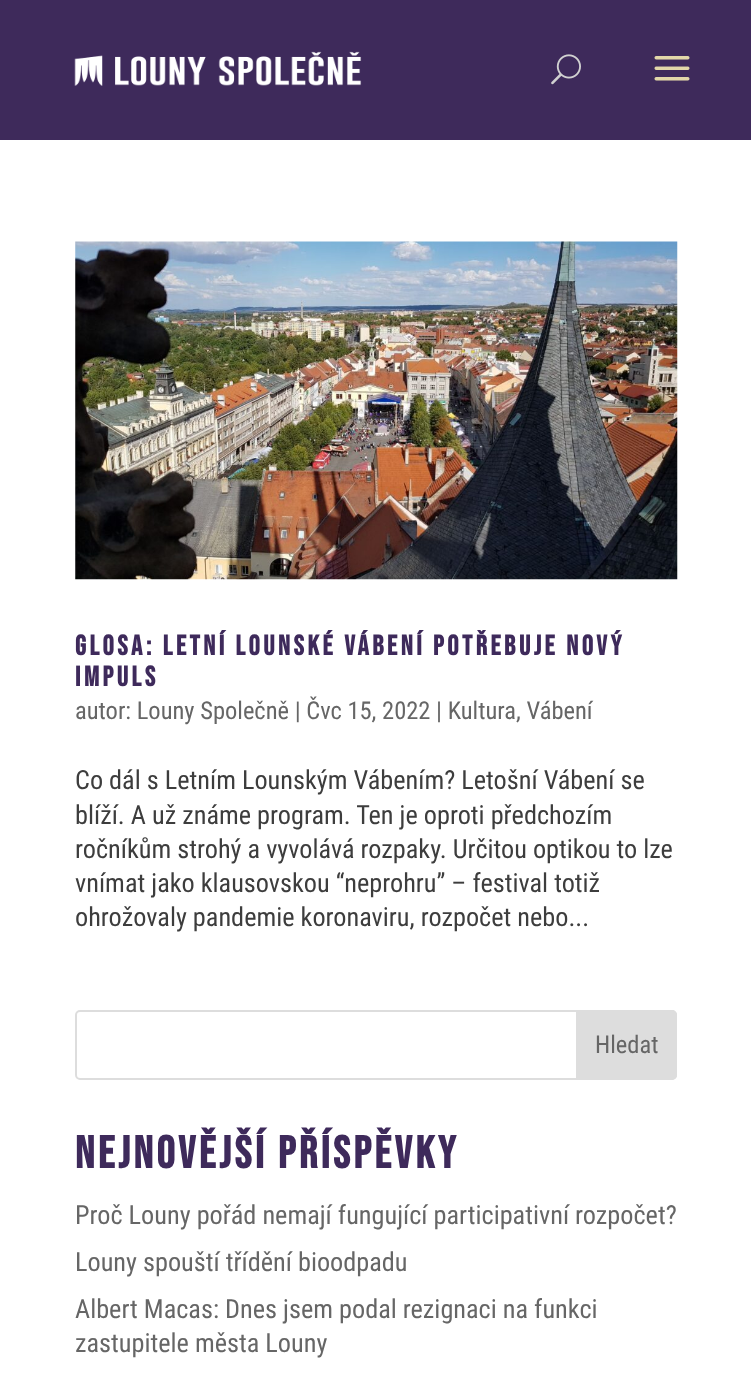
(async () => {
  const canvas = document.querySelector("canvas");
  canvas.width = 751;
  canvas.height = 1391;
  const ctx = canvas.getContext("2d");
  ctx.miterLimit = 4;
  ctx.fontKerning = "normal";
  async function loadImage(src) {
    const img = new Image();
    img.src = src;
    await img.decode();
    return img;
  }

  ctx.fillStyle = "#ffffff";
  ctx.fillRect(0, 0, 751, 1391);
  ctx.fillStyle = "#3e2a5b";
  ctx.fillRect(0, 0, 751, 140);
  ctx.drawImage(await loadImage("img/1.png"), 74, 51, 288, 35);
  ctx.drawImage(await loadImage("img/2.png"), 551, 54, 30, 31);
  ctx.drawImage(await loadImage("img/3.png"), 654, 56, 36, 25);
  ctx.drawImage(await loadImage("img/4.png"), 75, 241, 603, 339);
  ctx.beginPath();
  ctx.roundRect(76, 1011, 600, 68, 4);
  ctx.strokeStyle = "#dddddd";
  ctx.lineWidth = 2;
  ctx.stroke();
  ctx.fillStyle = "#dddddd";
  ctx.beginPath();
  ctx.roundRect(577, 1011, 99, 68, [0, 4, 4, 0]);
  ctx.fill();
  ctx.stroke();
  ctx.letterSpacing = "3.5px";
  ctx.font = "bold 28px Bebas Neue";
  ctx.fillStyle = "#3e2a5b";
  ctx.fillText("GLOSA: LETNÍ LOUNSKÉ VÁBENÍ POTŘEBUJE NOVÝ", 75, 655);
  ctx.fillText("IMPULS", 75, 686);
  ctx.letterSpacing = "0px";
  ctx.font = "24.5px Roboto Condensed";
  ctx.fillStyle = "#666666";
  ctx.fillText("autor: Louny Společně | Čvc 15, 2022 | Kultura, Vábení", 75, 719);
  ctx.font = "26.25px Roboto Condensed";
  ctx.fillStyle = "#3d3d3d";
  for (const [text, x, y] of [
    ["Co dál s Letním Lounským Vábením? Letošní Vábení se", 75, 789],
    ["blíží. A už známe program. Ten je oproti předchozím", 75, 824],
    ["ročníkům strohý a vyvolává rozpaky. Určitou optikou to lze", 75, 858],
    ["vnímat jako klausovskou “neprohru” – festival totiž", 75, 892],
    ["ohrožovaly pandemie koronaviru, rozpočet nebo...", 75, 926],
  ]) {
    ctx.fillText(text, x, y);
  }
  ctx.font = "24.5px Roboto Condensed";
  ctx.fillStyle = "#666666";
  ctx.fillText("Hledat", 595, 1053);
  ctx.letterSpacing = "3.5px";
  ctx.font = "bold 45.5px Bebas Neue";
  ctx.fillStyle = "#3e2a5b";
  ctx.fillText("NEJNOVĚJŠÍ PŘÍSPĚVKY", 75, 1168);
  ctx.letterSpacing = "0px";
  ctx.font = "26.25px Roboto Condensed";
  ctx.fillStyle = "#666666";
  for (const [text, x, y] of [
    ["Proč Louny pořád nemají fungující participativní rozpočet?", 75, 1224],
    ["Louny spouští třídění bioodpadu", 75, 1271],
    ["Albert Macas: Dnes jsem podal rezignaci na funkci", 75, 1318],
    ["zastupitele města Louny", 75, 1352],
  ]) {
    ctx.fillText(text, x, y);
  }
})();
